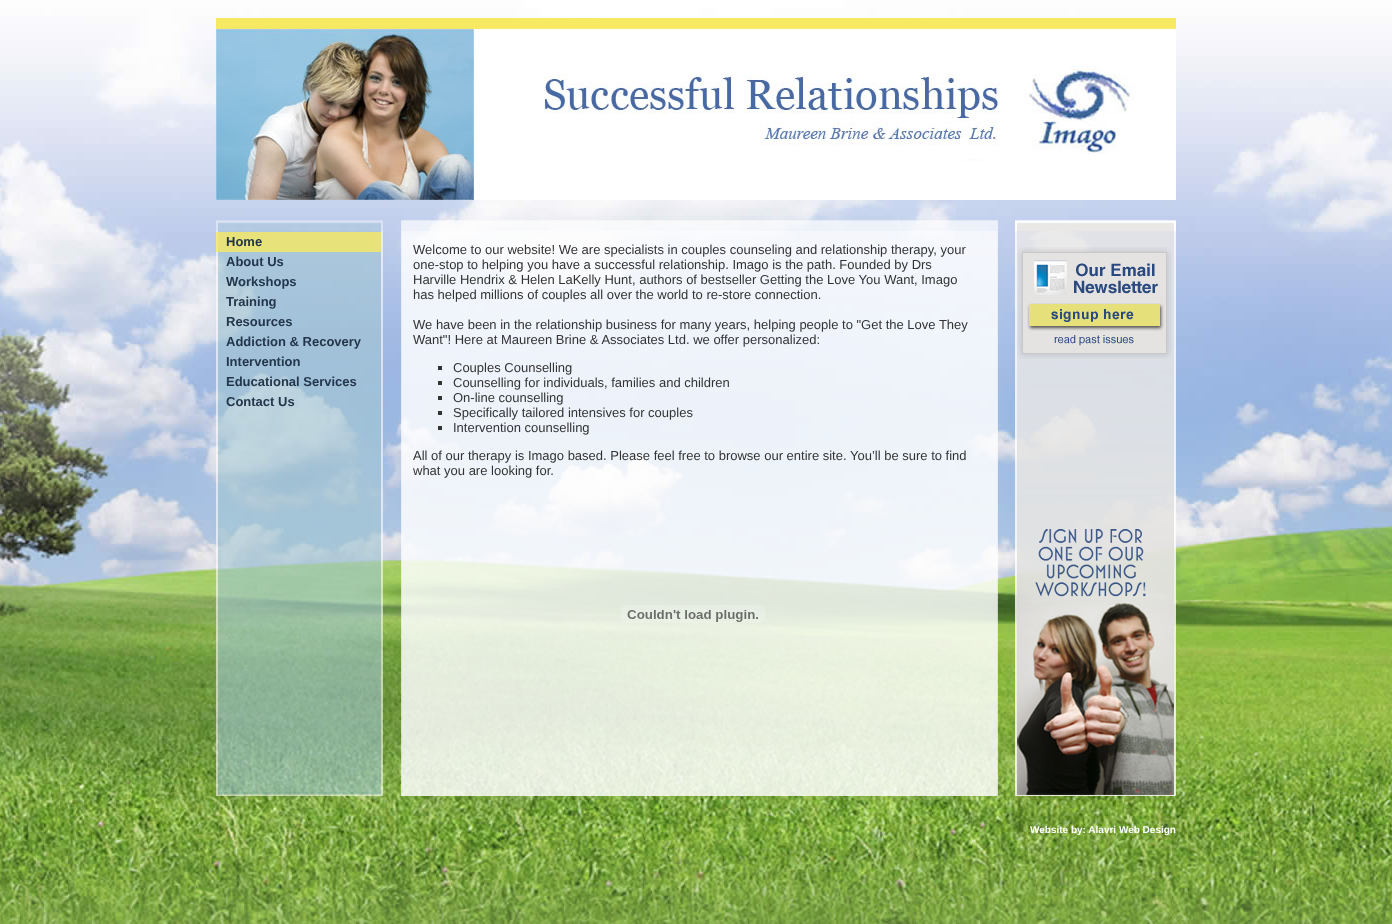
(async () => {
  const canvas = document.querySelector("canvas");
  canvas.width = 1392;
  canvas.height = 924;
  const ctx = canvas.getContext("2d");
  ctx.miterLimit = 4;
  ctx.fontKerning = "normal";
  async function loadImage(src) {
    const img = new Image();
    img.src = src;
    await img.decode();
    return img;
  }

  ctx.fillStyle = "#ffffff";
  ctx.fillRect(0, 0, 1392, 924);
  ctx.drawImage(await loadImage("img/1.png"), 0, 0, 1392, 924);
  ctx.drawImage(await loadImage("img/2.png"), 216, 18, 960, 182);
  ctx.drawImage(await loadImage("img/3.png"), 216, 220, 960, 11);
  ctx.drawImage(await loadImage("img/4.png"), 216, 231, 167, 565);
  ctx.fillStyle = "rgba(248, 232, 97, 0.8)";
  ctx.fillRect(216, 232, 165, 20);
  ctx.drawImage(await loadImage("img/5.png"), 401, 231, 597, 565);
  for (const [x, y, w, h, color] of [
    [438, 366, 4, 4, "#333333"],
    [438, 381, 4, 4, "#333333"],
    [438, 396, 4, 4, "#333333"],
    [438, 411, 4, 4, "#333333"],
    [438, 426, 4, 4, "#333333"],
  ]) {
    ctx.fillStyle = color;
    ctx.fillRect(x, y, w, h);
  }
  ctx.drawImage(await loadImage("img/6.png"), 621, 605, 144, 18);
  ctx.drawImage(await loadImage("img/7.png"), 1015, 231, 161, 565);
  ctx.drawImage(await loadImage("img/8.png"), 1017, 247, 155, 112);
  ctx.font = "bold 13px Liberation Sans";
  ctx.fillStyle = "#23364b";
  for (const [text, x, y] of [
    ["Home", 226, 246],
    ["About Us", 226, 266],
    ["Workshops", 226, 286],
    ["Training", 226, 306],
    ["Resources", 226, 326],
    ["Addiction & Recovery", 226, 346],
    ["Intervention", 226, 366],
    ["Educational Services", 226, 386],
    ["Contact Us", 226, 406],
  ]) {
    ctx.fillText(text, x, y);
  }
  ctx.font = "13px Liberation Sans";
  ctx.fillStyle = "#333333";
  for (const [text, x, y] of [
    ["Welcome to our website! We are specialists in couples counseling and relationship therapy, your", 413, 254],
    ["one-stop to helping you have a successful relationship. Imago is the path. Founded by Drs", 413, 269],
    ["Harville Hendrix & Helen LaKelly Hunt, authors of bestseller Getting the Love You Want, Imago", 413, 284],
    ["has helped millions of couples all over the world to re-store connection.", 413, 299],
    ["We have been in the relationship business for many years, helping people to \"Get the Love They", 413, 329],
    ["Want\"! Here at Maureen Brine & Associates Ltd. we offer personalized:", 413, 344],
    ["Couples Counselling", 453, 372],
    ["Counselling for individuals, families and children", 453, 387],
    ["On-line counselling", 453, 402],
    ["Specifically tailored intensives for couples", 453, 417],
    ["Intervention counselling", 453, 432],
    ["All of our therapy is Imago based. Please feel free to browse our entire site. You’ll be sure to find", 413, 460],
    ["what you are looking for.", 413, 475],
  ]) {
    ctx.fillText(text, x, y);
  }
  ctx.font = "bold 10px Liberation Sans";
  ctx.fillStyle = "#ffffff";
  ctx.fillText("Website by: Alavri Web Design", 1030, 833);
})();
